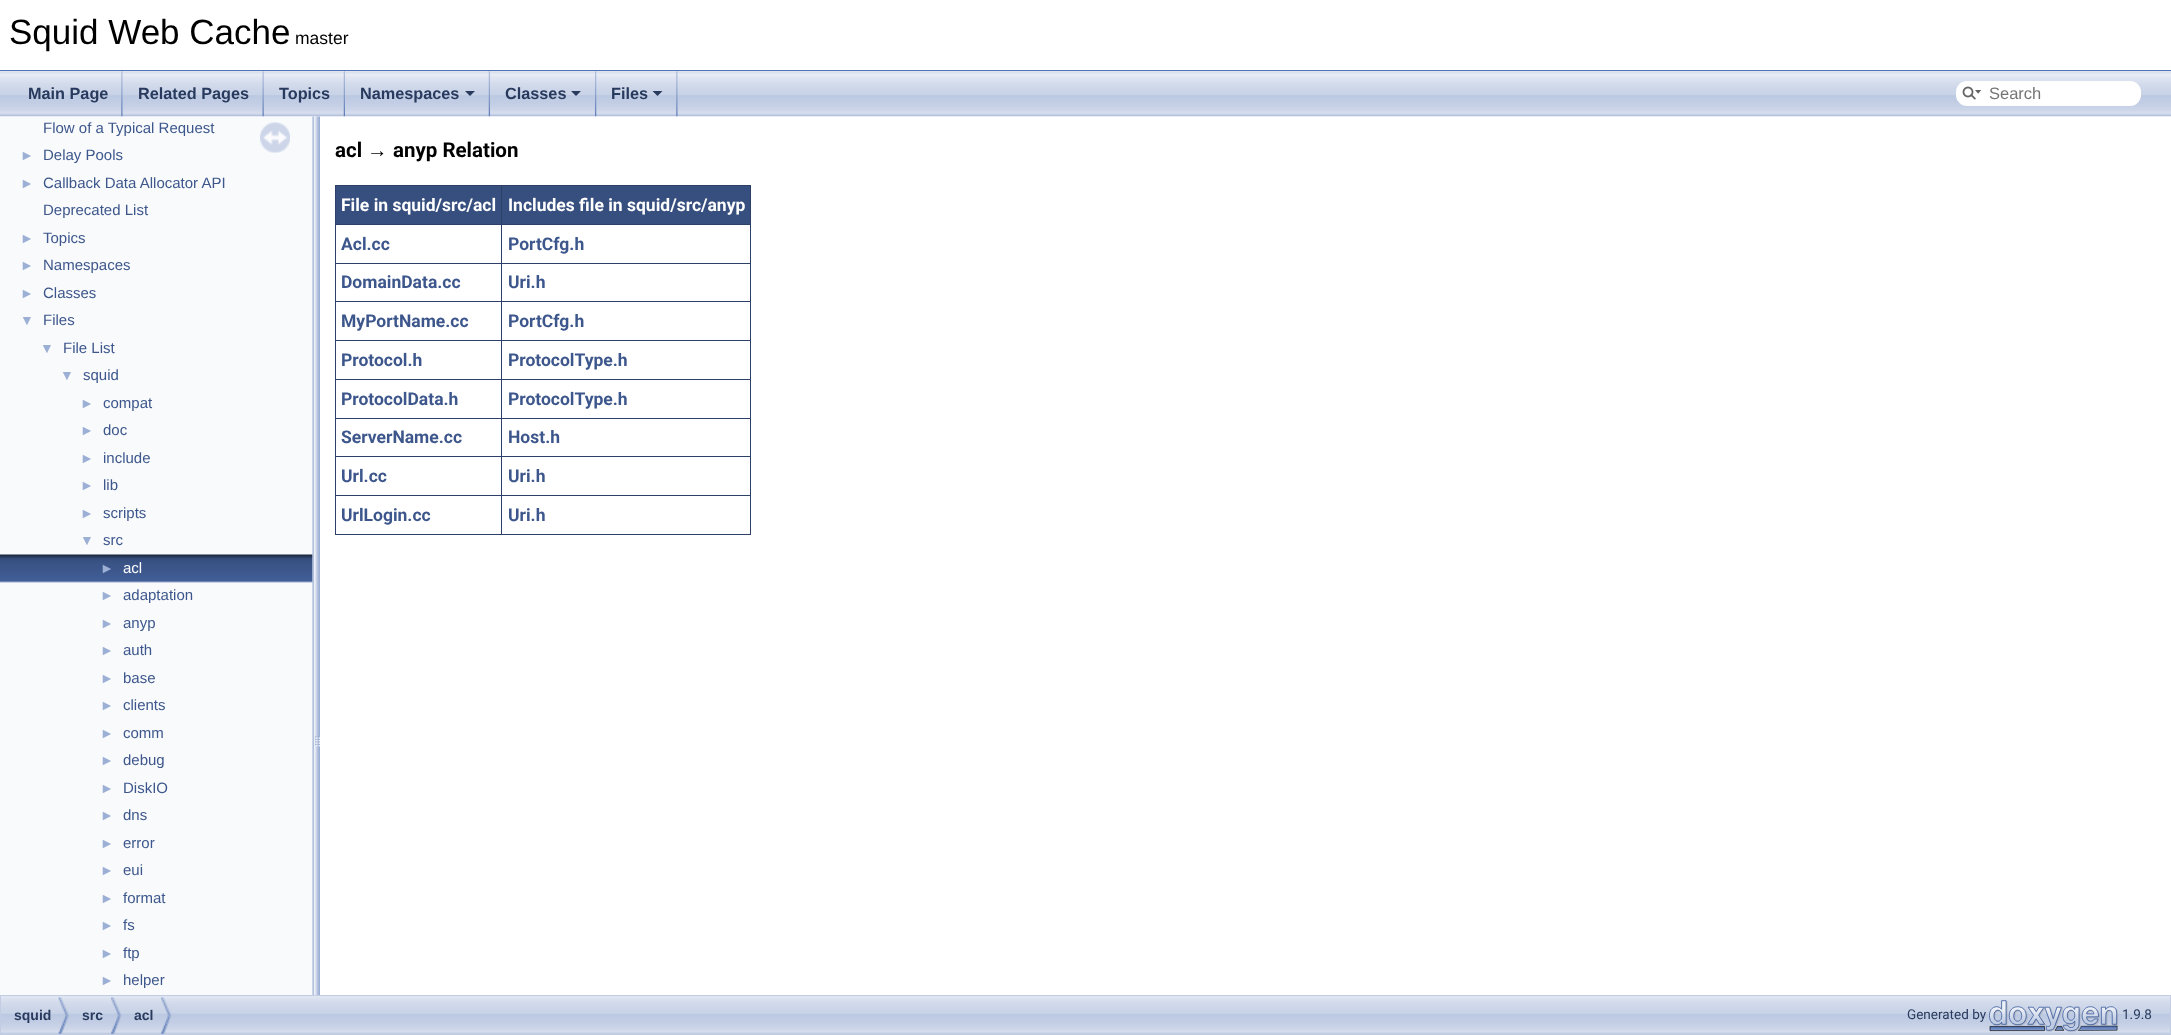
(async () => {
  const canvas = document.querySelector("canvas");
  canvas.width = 2171;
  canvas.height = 1035;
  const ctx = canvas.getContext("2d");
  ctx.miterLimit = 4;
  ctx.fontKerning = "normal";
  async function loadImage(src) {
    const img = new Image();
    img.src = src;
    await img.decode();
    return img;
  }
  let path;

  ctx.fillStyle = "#ffffff";
  ctx.fillRect(0, 0, 2171, 1035);
  ctx.fillStyle = "#5373b4";
  ctx.fillRect(0, 70, 2171, 1);
  ctx.fillStyle = "#f9fafc";
  ctx.fillRect(0, 116, 313, 879);
  ctx.drawImage(await loadImage("img/8.png"), 0, 554, 313, 29);
  ctx.drawImage(await loadImage("img/10.png"), 312, 116, 8, 879);
  ctx.drawImage(await loadImage("img/1.png"), 0, 71, 2171, 46);
  ctx.drawImage(await loadImage("img/2.png"), 121, 71, 2, 46);
  ctx.drawImage(await loadImage("img/3.png"), 262, 71, 2, 46);
  ctx.drawImage(await loadImage("img/4.png"), 343, 71, 2, 46);
  ctx.drawImage(await loadImage("img/4.png"), 488, 71, 2, 46);
  ctx.fillStyle = "#283a5d";
  path = new Path2D("M465 91H475L470 96Z");
  ctx.fill(path);
  ctx.drawImage(await loadImage("img/5.png"), 595, 71, 2, 46);
  path = new Path2D("M571 91H581L576 96Z");
  ctx.fill(path);
  ctx.drawImage(await loadImage("img/6.png"), 676, 71, 2, 46);
  path = new Path2D("M652.5 91H662.5L657.5 96Z");
  ctx.fill(path);
  ctx.fillStyle = "#ffffff";
  ctx.beginPath();
  ctx.roundRect(1956, 81, 185, 25, 11);
  ctx.fill();
  ctx.drawImage(await loadImage("img/7.png"), 1962, 86, 20, 14);
  ctx.drawImage(await loadImage("img/9.png"), 260, 122, 30, 31);
  for (const [x, y, w, h, color] of [
    [335, 185, 416, 1, "#2d4068"],
    [750, 185, 1, 350, "#2d4068"],
    [335, 534, 416, 1, "#2d4068"],
    [335, 185, 1, 350, "#2d4068"],
    [336, 186, 414, 38, "#374f7f"],
    [335, 224, 416, 1, "#2d4068"],
    [335, 263, 416, 1, "#2d4068"],
    [335, 301, 416, 1, "#2d4068"],
    [335, 340, 416, 1, "#2d4068"],
    [335, 379, 416, 1, "#2d4068"],
    [335, 418, 416, 1, "#2d4068"],
    [335, 456, 416, 1, "#2d4068"],
    [335, 495, 416, 1, "#2d4068"],
    [501, 185, 1, 350, "#2d4068"],
  ]) {
    ctx.fillStyle = color;
    ctx.fillRect(x, y, w, h);
  }
  ctx.drawImage(await loadImage("img/11.png"), 1, 996, 2169, 38);
  ctx.strokeStyle = "#c2cde4";
  ctx.strokeRect(0.5, 995.5, 2170, 39);
  ctx.drawImage(await loadImage("img/12.png"), 58, 997, 11, 37);
  ctx.drawImage(await loadImage("img/13.png"), 111, 997, 11, 37);
  ctx.drawImage(await loadImage("img/13.png"), 161, 997, 11, 37);
  ctx.drawImage(await loadImage("img/14.png"), 1989, 1000, 130, 33);
  ctx.font = "35px Liberation Sans";
  ctx.fillStyle = "#000000";
  ctx.fillText("Squid Web Cache", 9, 44);
  ctx.font = "17.5px Liberation Sans";
  ctx.fillText("master", 295, 44);
  ctx.font = "bold 16.25px Liberation Sans";
  ctx.fillStyle = "#283a5d";
  for (const [text, x, y] of [
    ["Main Page", 28, 99],
    ["Related Pages", 138, 99],
    ["Topics", 279, 99],
    ["Namespaces", 360, 99],
    ["Classes", 505, 99],
    ["Files", 611, 99],
  ]) {
    ctx.fillText(text, x, y);
  }
  ctx.font = "16.5px Liberation Sans";
  ctx.fillStyle = "#757575";
  ctx.fillText("Search", 1989, 99);
  ctx.font = "15px Liberation Sans";
  ctx.fillStyle = "#3d578c";
  ctx.fillText("Flow of a Typical Request", 43, 133);
  ctx.font = "14px Liberation Sans";
  ctx.fillStyle = "#9cafd4";
  ctx.fillText("►", 20, 160);
  ctx.font = "15px Liberation Sans";
  ctx.fillStyle = "#3d578c";
  ctx.fillText("Delay Pools", 43, 160);
  ctx.font = "14px Liberation Sans";
  ctx.fillStyle = "#9cafd4";
  ctx.fillText("►", 20, 188);
  ctx.font = "15px Liberation Sans";
  ctx.fillStyle = "#3d578c";
  ctx.fillText("Callback Data Allocator API", 43, 188);
  ctx.fillText("Deprecated List", 43, 215);
  ctx.font = "14px Liberation Sans";
  ctx.fillStyle = "#9cafd4";
  ctx.fillText("►", 20, 243);
  ctx.font = "15px Liberation Sans";
  ctx.fillStyle = "#3d578c";
  ctx.fillText("Topics", 43, 243);
  ctx.font = "14px Liberation Sans";
  ctx.fillStyle = "#9cafd4";
  ctx.fillText("►", 20, 270);
  ctx.font = "15px Liberation Sans";
  ctx.fillStyle = "#3d578c";
  ctx.fillText("Namespaces", 43, 270);
  ctx.font = "14px Liberation Sans";
  ctx.fillStyle = "#9cafd4";
  ctx.fillText("►", 20, 298);
  ctx.font = "15px Liberation Sans";
  ctx.fillStyle = "#3d578c";
  ctx.fillText("Classes", 43, 298);
  ctx.font = "14px Liberation Sans";
  ctx.fillStyle = "#9cafd4";
  ctx.fillText("▼", 20, 325);
  ctx.font = "15px Liberation Sans";
  ctx.fillStyle = "#3d578c";
  ctx.fillText("Files", 43, 325);
  ctx.font = "14px Liberation Sans";
  ctx.fillStyle = "#9cafd4";
  ctx.fillText("▼", 40, 353);
  ctx.font = "15px Liberation Sans";
  ctx.fillStyle = "#3d578c";
  ctx.fillText("File List", 63, 353);
  ctx.font = "14px Liberation Sans";
  ctx.fillStyle = "#9cafd4";
  ctx.fillText("▼", 60, 380);
  ctx.font = "15px Liberation Sans";
  ctx.fillStyle = "#3d578c";
  ctx.fillText("squid", 83, 380);
  ctx.font = "14px Liberation Sans";
  ctx.fillStyle = "#9cafd4";
  ctx.fillText("►", 80, 408);
  ctx.font = "15px Liberation Sans";
  ctx.fillStyle = "#3d578c";
  ctx.fillText("compat", 103, 408);
  ctx.font = "14px Liberation Sans";
  ctx.fillStyle = "#9cafd4";
  ctx.fillText("►", 80, 435);
  ctx.font = "15px Liberation Sans";
  ctx.fillStyle = "#3d578c";
  ctx.fillText("doc", 103, 435);
  ctx.font = "14px Liberation Sans";
  ctx.fillStyle = "#9cafd4";
  ctx.fillText("►", 80, 463);
  ctx.font = "15px Liberation Sans";
  ctx.fillStyle = "#3d578c";
  ctx.fillText("include", 103, 463);
  ctx.font = "14px Liberation Sans";
  ctx.fillStyle = "#9cafd4";
  ctx.fillText("►", 80, 490);
  ctx.font = "15px Liberation Sans";
  ctx.fillStyle = "#3d578c";
  ctx.fillText("lib", 103, 490);
  ctx.font = "14px Liberation Sans";
  ctx.fillStyle = "#9cafd4";
  ctx.fillText("►", 80, 518);
  ctx.font = "15px Liberation Sans";
  ctx.fillStyle = "#3d578c";
  ctx.fillText("scripts", 103, 518);
  ctx.font = "14px Liberation Sans";
  ctx.fillStyle = "#9cafd4";
  ctx.fillText("▼", 80, 545);
  ctx.font = "15px Liberation Sans";
  ctx.fillStyle = "#3d578c";
  ctx.fillText("src", 103, 545);
  ctx.font = "14px Liberation Sans";
  ctx.fillStyle = "#9cafd4";
  ctx.fillText("►", 100, 573);
  ctx.font = "15px Liberation Sans";
  ctx.fillStyle = "#ffffff";
  ctx.fillText("acl", 123, 573);
  ctx.font = "14px Liberation Sans";
  ctx.fillStyle = "#9cafd4";
  ctx.fillText("►", 100, 600);
  ctx.font = "15px Liberation Sans";
  ctx.fillStyle = "#3d578c";
  ctx.fillText("adaptation", 123, 600);
  ctx.font = "14px Liberation Sans";
  ctx.fillStyle = "#9cafd4";
  ctx.fillText("►", 100, 628);
  ctx.font = "15px Liberation Sans";
  ctx.fillStyle = "#3d578c";
  ctx.fillText("anyp", 123, 628);
  ctx.font = "14px Liberation Sans";
  ctx.fillStyle = "#9cafd4";
  ctx.fillText("►", 100, 655);
  ctx.font = "15px Liberation Sans";
  ctx.fillStyle = "#3d578c";
  ctx.fillText("auth", 123, 655);
  ctx.font = "14px Liberation Sans";
  ctx.fillStyle = "#9cafd4";
  ctx.fillText("►", 100, 683);
  ctx.font = "15px Liberation Sans";
  ctx.fillStyle = "#3d578c";
  ctx.fillText("base", 123, 683);
  ctx.font = "14px Liberation Sans";
  ctx.fillStyle = "#9cafd4";
  ctx.fillText("►", 100, 710);
  ctx.font = "15px Liberation Sans";
  ctx.fillStyle = "#3d578c";
  ctx.fillText("clients", 123, 710);
  ctx.font = "14px Liberation Sans";
  ctx.fillStyle = "#9cafd4";
  ctx.fillText("►", 100, 738);
  ctx.font = "15px Liberation Sans";
  ctx.fillStyle = "#3d578c";
  ctx.fillText("comm", 123, 738);
  ctx.font = "14px Liberation Sans";
  ctx.fillStyle = "#9cafd4";
  ctx.fillText("►", 100, 765);
  ctx.font = "15px Liberation Sans";
  ctx.fillStyle = "#3d578c";
  ctx.fillText("debug", 123, 765);
  ctx.font = "14px Liberation Sans";
  ctx.fillStyle = "#9cafd4";
  ctx.fillText("►", 100, 793);
  ctx.font = "15px Liberation Sans";
  ctx.fillStyle = "#3d578c";
  ctx.fillText("DiskIO", 123, 793);
  ctx.font = "14px Liberation Sans";
  ctx.fillStyle = "#9cafd4";
  ctx.fillText("►", 100, 820);
  ctx.font = "15px Liberation Sans";
  ctx.fillStyle = "#3d578c";
  ctx.fillText("dns", 123, 820);
  ctx.font = "14px Liberation Sans";
  ctx.fillStyle = "#9cafd4";
  ctx.fillText("►", 100, 848);
  ctx.font = "15px Liberation Sans";
  ctx.fillStyle = "#3d578c";
  ctx.fillText("error", 123, 848);
  ctx.font = "14px Liberation Sans";
  ctx.fillStyle = "#9cafd4";
  ctx.fillText("►", 100, 875);
  ctx.font = "15px Liberation Sans";
  ctx.fillStyle = "#3d578c";
  ctx.fillText("eui", 123, 875);
  ctx.font = "14px Liberation Sans";
  ctx.fillStyle = "#9cafd4";
  ctx.fillText("►", 100, 903);
  ctx.font = "15px Liberation Sans";
  ctx.fillStyle = "#3d578c";
  ctx.fillText("format", 123, 903);
  ctx.font = "14px Liberation Sans";
  ctx.fillStyle = "#9cafd4";
  ctx.fillText("►", 100, 930);
  ctx.font = "15px Liberation Sans";
  ctx.fillStyle = "#3d578c";
  ctx.fillText("fs", 123, 930);
  ctx.font = "14px Liberation Sans";
  ctx.fillStyle = "#9cafd4";
  ctx.fillText("►", 100, 958);
  ctx.font = "15px Liberation Sans";
  ctx.fillStyle = "#3d578c";
  ctx.fillText("ftp", 123, 958);
  ctx.font = "14px Liberation Sans";
  ctx.fillStyle = "#9cafd4";
  ctx.fillText("►", 100, 985);
  ctx.font = "15px Liberation Sans";
  ctx.fillStyle = "#3d578c";
  ctx.fillText("helper", 123, 985);
  ctx.font = "bold 20.5px Roboto";
  ctx.fillStyle = "#000000";
  ctx.fillText("acl", 335, 157);
  ctx.font = "bold 20.5px Liberation Sans";
  ctx.fillText("→", 367, 157);
  ctx.font = "bold 20.5px Roboto";
  ctx.fillText("anyp Relation", 393, 157);
  ctx.font = "bold 17.5px Roboto";
  ctx.fillStyle = "#ffffff";
  ctx.fillText("File in squid/src/acl", 341, 211);
  ctx.fillText("Includes file in squid/src/anyp", 508, 211);
  ctx.fillStyle = "#3d578c";
  for (const [text, x, y] of [
    ["Acl.cc", 341, 250],
    ["PortCfg.h", 508, 250],
    ["DomainData.cc", 341, 288],
    ["Uri.h", 508, 288],
    ["MyPortName.cc", 341, 327],
    ["PortCfg.h", 508, 327],
    ["Protocol.h", 341, 366],
    ["ProtocolType.h", 508, 366],
    ["ProtocolData.h", 341, 405],
    ["ProtocolType.h", 508, 405],
    ["ServerName.cc", 341, 443],
    ["Host.h", 508, 443],
    ["Url.cc", 341, 482],
    ["Uri.h", 508, 482],
    ["UrlLogin.cc", 341, 521],
    ["Uri.h", 508, 521],
  ]) {
    ctx.fillText(text, x, y);
  }
  ctx.font = "bold 14px Liberation Sans";
  ctx.fillStyle = "#283a5d";
  for (const [text, x, y] of [
    ["squid", 14, 1020],
    ["src", 82, 1020],
    ["acl", 134, 1020],
  ]) {
    ctx.fillText(text, x, y);
  }
  ctx.font = "13.5px Roboto";
  ctx.fillText("Generated by", 1907, 1019);
  ctx.fillText("1.9.8", 2122, 1019);
})();
